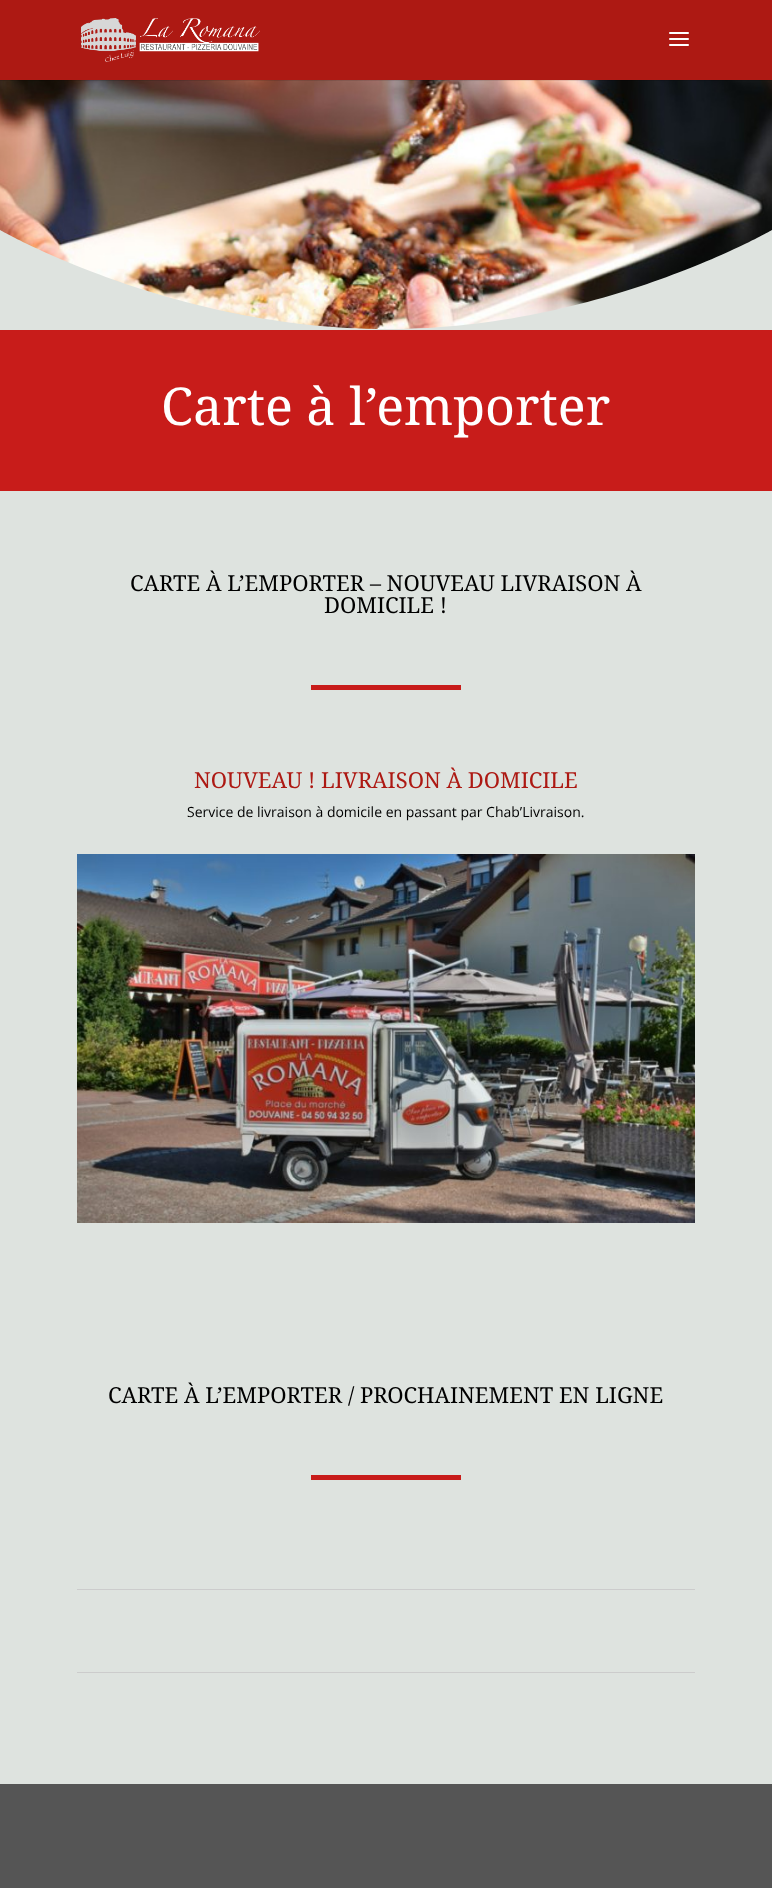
(async () => {
  const canvas = document.querySelector("canvas");
  canvas.width = 772;
  canvas.height = 1888;
  const ctx = canvas.getContext("2d");
  ctx.miterLimit = 4;
  ctx.fontKerning = "normal";
  async function loadImage(src) {
    const img = new Image();
    img.src = src;
    await img.decode();
    return img;
  }
  let path;

  ctx.fillStyle = "#c81c1a";
  ctx.fillRect(0, 0, 772, 1888);
  ctx.drawImage(await loadImage("img/3.png"), 0, 80, 772, 249);
  ctx.fillStyle = "rgba(0, 0, 0, 0.1)";
  ctx.fillRect(0, 80, 772, 1);
  ctx.fillStyle = "#ad1913";
  ctx.fillRect(0, 0, 772, 80);
  ctx.drawImage(await loadImage("img/1.png"), 81, 18, 179, 44);
  ctx.drawImage(await loadImage("img/2.png"), 669, 32, 20, 14);
  ctx.fillStyle = "#dee3df";
  path = new Path2D("M772 330V230C772 230 599 330 386 329C173 329 0 230 0 230V330Z");
  ctx.fill(path);
  ctx.fillRect(0, 491, 772, 1293);
  ctx.fillStyle = "#c81c1a";
  ctx.fillRect(311, 685, 150, 5);
  ctx.drawImage(await loadImage("img/4.png"), 77, 854, 618, 369);
  for (const [x, y, w, h, color] of [
    [311, 1475, 150, 5, "#c81c1a"],
    [77, 1589, 618, 1, "#cccccc"],
    [77, 1672, 618, 1, "#cccccc"],
    [0, 1784, 772, 104, "#555555"],
  ]) {
    ctx.fillStyle = color;
    ctx.fillRect(x, y, w, h);
  }
  ctx.font = "52px Noto Serif";
  ctx.fillStyle = "#ffffff";
  ctx.fillText("Carte à l’emporter", 161, 425);
  ctx.font = "22px Noto Serif";
  ctx.fillStyle = "#000000";
  ctx.fillText("CARTE À L’EMPORTER – NOUVEAU LIVRAISON À", 130, 591);
  ctx.fillText("DOMICILE !", 324, 613);
  ctx.fillStyle = "#ad1913";
  ctx.fillText("NOUVEAU ! LIVRAISON À DOMICILE", 194, 788);
  ctx.font = "14px Open Sans";
  ctx.fillStyle = "#000000";
  ctx.fillText("Service de livraison à domicile en passant par Chab’Livraison.", 187, 817);
  ctx.font = "22px Noto Serif";
  ctx.fillText("CARTE À L’EMPORTER / PROCHAINEMENT EN LIGNE", 108, 1403);
})();
